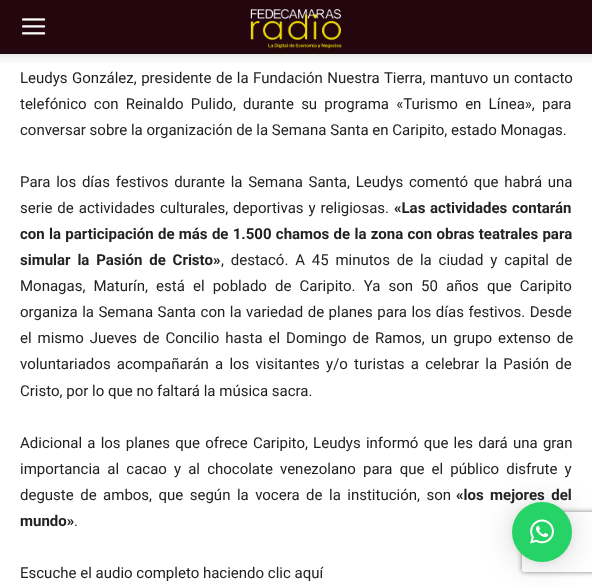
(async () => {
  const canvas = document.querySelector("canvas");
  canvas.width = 592;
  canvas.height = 586;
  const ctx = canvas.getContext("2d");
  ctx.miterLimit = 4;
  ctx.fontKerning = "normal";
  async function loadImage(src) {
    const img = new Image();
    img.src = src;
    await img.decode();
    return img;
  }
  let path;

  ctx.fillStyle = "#ffffff";
  ctx.fillRect(0, 0, 592, 586);
  ctx.fillStyle = "#23060e";
  ctx.fillRect(0, 0, 592, 54);
  ctx.drawImage(await loadImage("img/1.png"), 22, 18, 24, 17);
  ctx.drawImage(await loadImage("img/2.png"), 250, 9, 92, 40);
  ctx.drawImage(await loadImage("img/3.png"), 0, 54, 592, 9);
  ctx.fillStyle = "rgba(0, 0, 0, 0.16)";
  ctx.filter = "blur(16px)";
  ctx.beginPath();
  ctx.roundRect(512, 504, 60, 60, 30);
  ctx.fill();
  ctx.filter = "none";
  ctx.fillStyle = "rgba(0, 0, 0, 0.06)";
  ctx.filter = "blur(3px)";
  ctx.beginPath();
  ctx.roundRect(512, 503, 60, 60, 30);
  ctx.fill();
  ctx.filter = "none";
  ctx.save();
  path = new Path2D("M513 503H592V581H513ZM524 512H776C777 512 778 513 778 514V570C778 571 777 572 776 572H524C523 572 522 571 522 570V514C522 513 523 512 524 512Z");
  ctx.clip(path, "evenodd");
  ctx.fillStyle = "#808080";
  ctx.filter = "blur(2.5px)";
  ctx.beginPath();
  ctx.roundRect(522, 512, 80, 60, 2);
  ctx.fill();
  ctx.filter = "none";
  ctx.restore();
  ctx.wordSpacing = "0.75px";
  ctx.font = "15px Roboto";
  ctx.fillStyle = "#222222";
  ctx.fillText("Leudys González, presidente de la Fundación Nuestra Tierra, mantuvo un contacto", 20, 83);
  ctx.wordSpacing = "3.5px";
  ctx.fillText("telefónico con Reinaldo Pulido, durante su programa «Turismo en Línea», para", 20, 109);
  ctx.wordSpacing = "0px";
  ctx.fillText("conversar sobre la organización de la Semana Santa en Caripito, estado Monagas.", 20, 135);
  ctx.wordSpacing = "2px";
  ctx.fillText("Para los días festivos durante la Semana Santa, Leudys comentó que habrá una", 20, 187);
  ctx.wordSpacing = "1.25px";
  ctx.fillText("serie de actividades culturales, deportivas y religiosas.", 20, 213);
  ctx.wordSpacing = "1px";
  ctx.font = "bold 15px Roboto";
  ctx.fillText("«Las actividades contarán", 394, 213);
  ctx.wordSpacing = "0.6px";
  ctx.fillText("con la participación de más de 1.500 chamos de la zona con obras teatrales para", 20, 239);
  ctx.wordSpacing = "3.1px";
  ctx.fillText("simular la Pasión de Cristo»", 20, 265);
  ctx.font = "15px Roboto";
  ctx.fillText(", destacó. A 45 minutos de la ciudad y capital de", 221, 265);
  ctx.wordSpacing = "4.4px";
  ctx.fillText("Monagas, Maturín, está el poblado de Caripito. Ya son 50 años que Caripito", 20, 291);
  ctx.wordSpacing = "0.8px";
  ctx.fillText("organiza la Semana Santa con la variedad de planes para los días festivos. Desde", 20, 317);
  ctx.wordSpacing = "2.25px";
  ctx.fillText("el mismo Jueves de Concilio hasta el Domingo de Ramos, un grupo extenso de", 20, 343);
  ctx.wordSpacing = "2.5px";
  ctx.fillText("voluntariados acompañarán a los visitantes y/o turistas a celebrar la Pasión de", 20, 369);
  ctx.wordSpacing = "0px";
  ctx.fillText("Cristo, por lo que no faltará la música sacra.", 20, 396);
  ctx.wordSpacing = "1.5px";
  ctx.fillText("Adicional a los planes que ofrece Caripito, Leudys informó que les dará una gran", 20, 448);
  ctx.wordSpacing = "3.4px";
  ctx.fillText("importancia al cacao y al chocolate venezolano para que el público disfrute y", 20, 474);
  ctx.wordSpacing = "2.75px";
  ctx.fillText("deguste de ambos, que según la vocera de la institución, son", 20, 500);
  ctx.font = "bold 15px Roboto";
  ctx.fillText("«los mejores del", 456, 500);
  ctx.wordSpacing = "0px";
  ctx.fillText("mundo»", 20, 526);
  ctx.font = "15px Roboto";
  ctx.fillText(".", 74, 526);
  ctx.fillText("Escuche el audio completo haciendo clic aquí", 20, 578);
  ctx.fillStyle = "#25d366";
  ctx.beginPath();
  ctx.arc(542, 532, 30, 0, Math.PI * 2);
  ctx.fill();
  ctx.drawImage(await loadImage("img/4.png"), 530, 519, 24, 25);
})();
